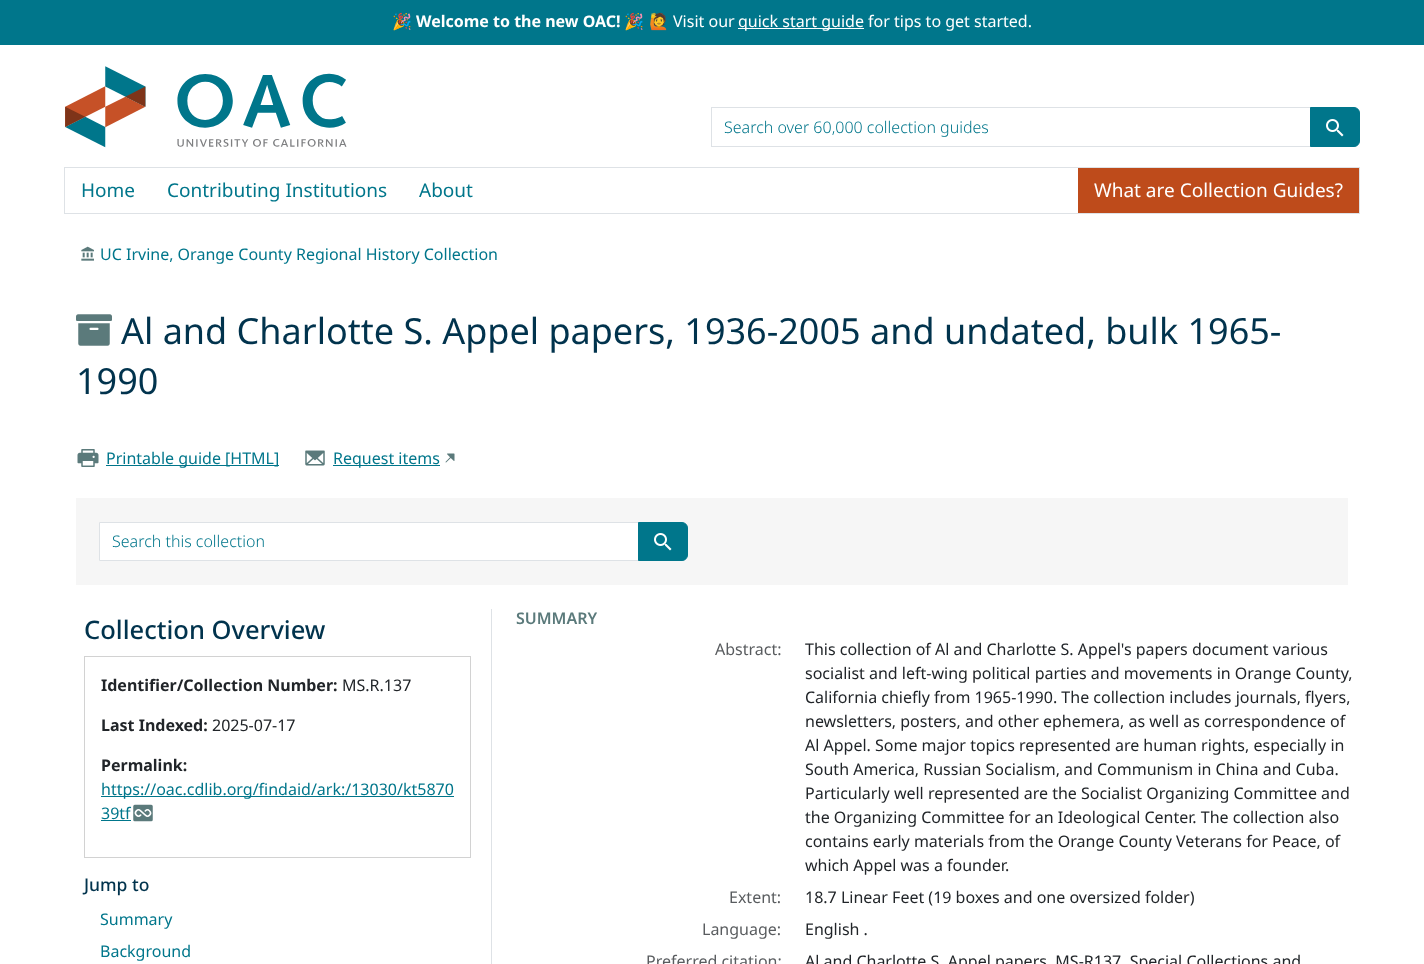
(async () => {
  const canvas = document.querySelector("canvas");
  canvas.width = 1424;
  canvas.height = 964;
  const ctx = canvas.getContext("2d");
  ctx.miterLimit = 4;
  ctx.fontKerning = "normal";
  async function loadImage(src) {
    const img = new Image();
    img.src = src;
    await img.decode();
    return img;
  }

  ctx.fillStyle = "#ffffff";
  ctx.fillRect(0, 0, 1424, 964);
  ctx.fillStyle = "#00768b";
  ctx.fillRect(0, 0, 1424, 45);
  ctx.fillStyle = "#ffffff";
  ctx.fillRect(738, 28, 126, 1);
  ctx.drawImage(await loadImage("img/1.png"), 65, 66, 282, 82);
  ctx.strokeStyle = "#dee2e6";
  ctx.strokeRect(711.5, 107.5, 599, 39);
  ctx.fillStyle = "#00768b";
  ctx.beginPath();
  ctx.roundRect(1310.5, 107.5, 49, 39, [0, 5.5, 5.5, 0]);
  ctx.fill();
  ctx.strokeStyle = "#00768b";
  ctx.stroke();
  ctx.drawImage(await loadImage("img/2.png"), 1326, 119, 18, 18);
  ctx.strokeStyle = "#dee2e6";
  ctx.strokeRect(64.5, 167.5, 1295, 46);
  ctx.fillStyle = "#be4b1b";
  ctx.fillRect(1078, 168, 281, 45);
  ctx.drawImage(await loadImage("img/3.png"), 81, 246, 13, 15);
  ctx.drawImage(await loadImage("img/4.png"), 76, 314, 36, 32);
  ctx.drawImage(await loadImage("img/5.png"), 77, 449, 22, 18);
  ctx.fillStyle = "#00768b";
  ctx.fillRect(106, 465, 173, 1);
  ctx.drawImage(await loadImage("img/6.png"), 305, 450, 20, 16);
  ctx.fillRect(333, 465, 107, 1);
  ctx.drawImage(await loadImage("img/7.png"), 445, 453, 10, 10);
  ctx.fillStyle = "#f6f6f6";
  ctx.fillRect(76, 498, 1272, 87);
  ctx.fillStyle = "#ffffff";
  ctx.beginPath();
  ctx.rect(99.5, 522.5, 539, 38);
  ctx.fill();
  ctx.stroke();
  ctx.fillStyle = "#00768b";
  ctx.beginPath();
  ctx.roundRect(638.5, 522.5, 49, 38, [0, 5.5, 5.5, 0]);
  ctx.fill();
  ctx.strokeStyle = "#00768b";
  ctx.stroke();
  ctx.drawImage(await loadImage("img/2.png"), 654, 533, 18, 18);
  ctx.fillStyle = "#dee2e6";
  ctx.fillRect(491, 609, 1, 355);
  ctx.strokeStyle = "#d2d2d2";
  ctx.strokeRect(84.5, 656.5, 386, 201);
  ctx.fillStyle = "#00768b";
  ctx.fillRect(101, 796, 353, 1);
  ctx.fillRect(101, 820, 30, 1);
  ctx.drawImage(await loadImage("img/8.png"), 133, 804, 20, 18);
  ctx.font = "bold 16px Noto Color Emoji";
  ctx.fillStyle = "#ffffff";
  ctx.fillText("🎉", 392, 27);
  ctx.font = "bold 16px Noto Sans";
  ctx.fillText("Welcome to the new OAC!", 416, 27);
  ctx.font = "bold 16px Noto Color Emoji";
  ctx.fillText("🎉", 624, 27);
  ctx.font = "16px Noto Color Emoji";
  ctx.fillText("🙋", 649, 27);
  ctx.font = "16px Noto Sans";
  ctx.fillText("Visit our", 673, 27);
  ctx.fillText("quick start guide for tips to get started.", 738, 27);
  ctx.font = "300 16px Noto Sans";
  ctx.fillStyle = "#00768b";
  ctx.fillText("Search over 60,000 collection guides", 724, 133);
  ctx.font = "19px Noto Sans";
  for (const [text, x, y] of [
    ["Home", 81, 197],
    ["Contributing Institutions", 167, 197],
    ["About", 419, 197],
  ]) {
    ctx.fillText(text, x, y);
  }
  ctx.fillStyle = "#ffffff";
  ctx.fillText("What are Collection Guides?", 1094, 197);
  ctx.font = "16px Noto Sans";
  ctx.fillStyle = "#00768b";
  ctx.fillText("UC Irvine, Orange County Regional History Collection", 100, 260);
  ctx.font = "36px Noto Sans";
  ctx.fillStyle = "#01334d";
  ctx.fillText("Al and Charlotte S. Appel papers, 1936-2005 and undated, bulk 1965-", 121, 344);
  ctx.fillText("1990", 76, 394);
  ctx.font = "16px Noto Sans";
  ctx.fillStyle = "#00768b";
  ctx.fillText("Printable guide [HTML]", 106, 464);
  ctx.fillText("Request items", 333, 464);
  ctx.font = "300 16px Noto Sans";
  ctx.fillText("Search this collection", 112, 547);
  ctx.font = "500 25.5px Noto Sans";
  ctx.fillStyle = "#01334d";
  ctx.fillText("Collection Overview", 84, 639);
  ctx.font = "bold 16px Noto Sans";
  ctx.fillStyle = "#212529";
  ctx.fillText("Identifier/Collection Number:", 101, 691);
  ctx.font = "16px Noto Sans";
  ctx.fillText("MS.R.137", 342, 691);
  ctx.font = "bold 16px Noto Sans";
  ctx.fillText("Last Indexed:", 101, 731);
  ctx.font = "16px Noto Sans";
  ctx.fillText("2025-07-17", 212, 731);
  ctx.font = "bold 16px Noto Sans";
  ctx.fillText("Permalink:", 101, 771);
  ctx.font = "16px Noto Sans";
  ctx.fillStyle = "#00768b";
  ctx.fillText("https://oac.cdlib.org/findaid/ark:/13030/kt5870", 101, 795);
  ctx.fillText("39tf", 101, 819);
  ctx.font = "500 17.5px Noto Sans";
  ctx.fillStyle = "#01334d";
  ctx.fillText("Jump to", 84, 891);
  ctx.font = "16px Noto Sans";
  ctx.fillStyle = "#00768b";
  ctx.fillText("Summary", 100, 925);
  ctx.fillText("Background", 100, 957);
  ctx.font = "600 16px Noto Sans";
  ctx.fillStyle = "#5b7a7b";
  ctx.fillText("SUMMARY", 516, 624);
  ctx.font = "16px Noto Sans";
  ctx.fillStyle = "#595c5f";
  ctx.fillText("Abstract:", 715, 655);
  ctx.fillStyle = "#212529";
  for (const [text, x, y] of [
    ["This collection of Al and Charlotte S. Appel's papers document various", 805, 655],
    ["socialist and left-wing political parties and movements in Orange County,", 805, 679],
    ["California chiefly from 1965-1990. The collection includes journals, flyers,", 805, 703],
    ["newsletters, posters, and other ephemera, as well as correspondence of", 805, 727],
    ["Al Appel. Some major topics represented are human rights, especially in", 805, 751],
    ["South America, Russian Socialism, and Communism in China and Cuba.", 805, 775],
    ["Particularly well represented are the Socialist Organizing Committee and", 805, 799],
    ["the Organizing Committee for an Ideological Center. The collection also", 805, 823],
    ["contains early materials from the Orange County Veterans for Peace, of", 805, 847],
    ["which Appel was a founder.", 805, 871],
  ]) {
    ctx.fillText(text, x, y);
  }
  ctx.fillStyle = "#595c5f";
  ctx.fillText("Extent:", 729, 903);
  ctx.fillStyle = "#212529";
  ctx.fillText("18.7 Linear Feet (19 boxes and one oversized folder)", 805, 903);
  ctx.fillStyle = "#595c5f";
  ctx.fillText("Language:", 702, 935);
  ctx.fillStyle = "#212529";
  ctx.fillText("English .", 805, 935);
  ctx.fillStyle = "#595c5f";
  ctx.fillText("Preferred citation:", 646, 967);
  ctx.fillStyle = "#212529";
  ctx.fillText("Al and Charlotte S. Appel papers. MS-R137. Special Collections and", 805, 967);
})();
